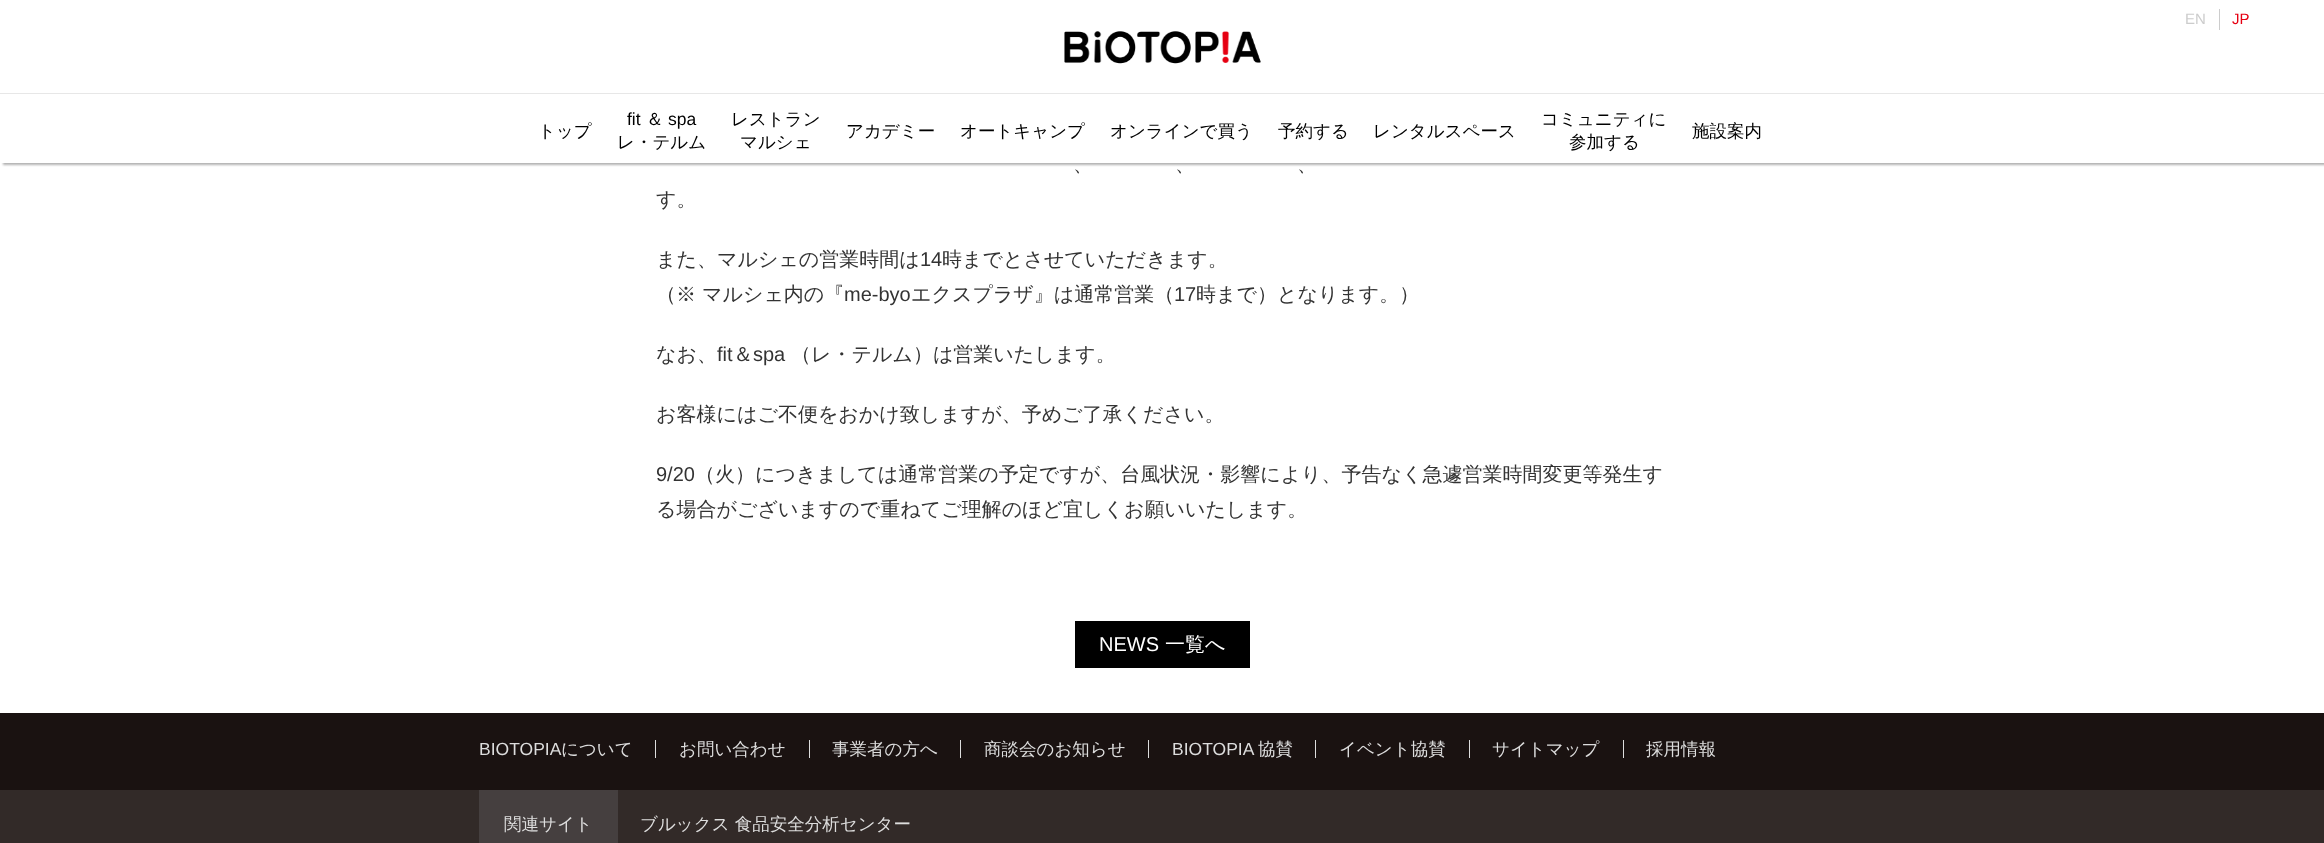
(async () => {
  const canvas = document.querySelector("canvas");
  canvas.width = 2324;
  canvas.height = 843;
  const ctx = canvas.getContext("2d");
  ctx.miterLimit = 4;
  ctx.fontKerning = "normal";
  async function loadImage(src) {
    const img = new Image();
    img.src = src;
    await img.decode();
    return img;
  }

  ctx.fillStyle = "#ffffff";
  ctx.fillRect(0, 0, 2324, 843);
  ctx.fillStyle = "rgba(0, 0, 0, 0.3)";
  ctx.filter = "blur(1px)";
  ctx.beginPath();
  ctx.rect(3, -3, 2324, 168);
  ctx.fill();
  ctx.filter = "none";
  for (const [x, y, w, h, color] of [
    [1, 0, 2323, 163, "#ffffff"],
    [2219, 9, 1, 21, "#cccccc"],
    [0, 93, 2324, 1, "#e7e7e7"],
  ]) {
    ctx.fillStyle = color;
    ctx.fillRect(x, y, w, h);
  }
  ctx.drawImage(await loadImage("img/1.png"), 1064, 31, 197, 33);
  for (const [x, y, w, h, color] of [
    [1075, 621, 175, 47, "#000000"],
    [0, 713, 2324, 77, "#1a1211"],
    [655, 740, 1, 18, "#dddddd"],
    [809, 740, 1, 18, "#dddddd"],
    [960, 740, 1, 18, "#dddddd"],
    [1148, 740, 1, 18, "#dddddd"],
    [1315, 740, 1, 18, "#dddddd"],
    [1469, 740, 1, 18, "#dddddd"],
    [1623, 740, 1, 18, "#dddddd"],
    [0, 790, 2324, 53, "#322a28"],
    [479, 790, 139, 53, "#453f3f"],
  ]) {
    ctx.fillStyle = color;
    ctx.fillRect(x, y, w, h);
  }
  ctx.font = "15px Liberation Sans";
  ctx.fillStyle = "#cccccc";
  ctx.fillText("EN", 2185, 24);
  ctx.fillStyle = "#e60012";
  ctx.fillText("JP", 2232, 24);
  ctx.font = "500 17.5px WenQuanYi Zen Hei";
  ctx.fillStyle = "#000000";
  ctx.fillText("トップ", 538, 137);
  ctx.font = "17.5px Liberation Sans";
  ctx.fillText("fit", 627, 125);
  ctx.font = "500 17.5px WenQuanYi Zen Hei";
  ctx.fillText("＆", 646, 125);
  ctx.font = "17.5px Liberation Sans";
  ctx.fillText("spa", 668, 125);
  ctx.font = "500 17.5px WenQuanYi Zen Hei";
  for (const [text, x, y] of [
    ["レ・テルム", 617, 148],
    ["レストラン", 731, 125],
    ["マルシェ", 740, 148],
    ["アカデミー", 846, 137],
    ["オートキャンプ", 960, 137],
    ["オンラインで買う", 1110, 137],
    ["予約する", 1278, 137],
    ["レンタルスペース", 1373, 137],
    ["コミュニティに", 1541, 125],
    ["参加する", 1569, 148],
    ["施設案内", 1692, 137],
  ]) {
    ctx.fillText(text, x, y);
  }
  ctx.font = "500 20px WenQuanYi Zen Hei";
  ctx.fillStyle = "#333333";
  for (const [text, x, y] of [
    ["、", 1073, 171],
    ["、", 1175, 171],
    ["、", 1297, 171],
    ["す。", 656, 206],
    ["また、マルシェの営業時間は", 656, 266],
  ]) {
    ctx.fillText(text, x, y);
  }
  ctx.font = "20px Liberation Sans";
  ctx.fillText("14", 920, 266);
  ctx.font = "500 20px WenQuanYi Zen Hei";
  ctx.fillText("時までとさせていただきます。", 942, 266);
  ctx.fillText("（※ マルシェ内の『", 656, 301);
  ctx.font = "20px Liberation Sans";
  ctx.fillText("me-byo", 844, 301);
  ctx.font = "500 20px WenQuanYi Zen Hei";
  ctx.fillText("エクスプラザ』は通常営業（", 911, 301);
  ctx.font = "20px Liberation Sans";
  ctx.fillText("17", 1174, 301);
  ctx.font = "500 20px WenQuanYi Zen Hei";
  ctx.fillText("時まで）となります。）", 1196, 301);
  ctx.fillText("なお、", 656, 361);
  ctx.font = "20px Liberation Sans";
  ctx.fillText("fit", 717, 361);
  ctx.font = "500 20px WenQuanYi Zen Hei";
  ctx.fillText("＆", 733, 361);
  ctx.font = "20px Liberation Sans";
  ctx.fillText("spa", 753, 361);
  ctx.font = "500 20px WenQuanYi Zen Hei";
  ctx.fillText("（レ・テルム）は営業いたします。", 791, 361);
  ctx.fillText("お客様にはご不便をおかけ致しますが、予めご了承ください。", 656, 421);
  ctx.font = "20px Liberation Sans";
  ctx.fillText("9/20", 656, 481);
  ctx.font = "500 20px WenQuanYi Zen Hei";
  ctx.fillText("（火）につきましては通常営業の予定ですが、台風状況・影響により、予告なく急遽営業時間変更等発生す", 695, 481);
  ctx.fillText("る場合がございますので重ねてご理解のほど宜しくお願いいたします。", 656, 516);
  ctx.font = "20px Liberation Sans";
  ctx.fillStyle = "#ffffff";
  ctx.fillText("NEWS", 1099, 651);
  ctx.font = "500 20px WenQuanYi Zen Hei";
  ctx.fillText("一覧へ", 1165, 651);
  ctx.font = "17.5px Liberation Sans";
  ctx.fillStyle = "#dddddd";
  ctx.fillText("BIOTOPIA", 479, 755);
  ctx.font = "500 17.5px WenQuanYi Zen Hei";
  for (const [text, x, y] of [
    ["について", 561, 755],
    ["お問い合わせ", 679, 755],
    ["事業者の方へ", 832, 755],
    ["商談会のお知らせ", 984, 755],
  ]) {
    ctx.fillText(text, x, y);
  }
  ctx.font = "17.5px Liberation Sans";
  ctx.fillText("BIOTOPIA", 1172, 755);
  ctx.font = "500 17.5px WenQuanYi Zen Hei";
  for (const [text, x, y] of [
    ["協賛", 1258, 755],
    ["イベント協賛", 1339, 755],
    ["サイトマップ", 1492, 755],
    ["採用情報", 1646, 755],
    ["関連サイト", 504, 830],
    ["ブルックス 食品安全分析センター", 640, 830],
  ]) {
    ctx.fillText(text, x, y);
  }
})();
